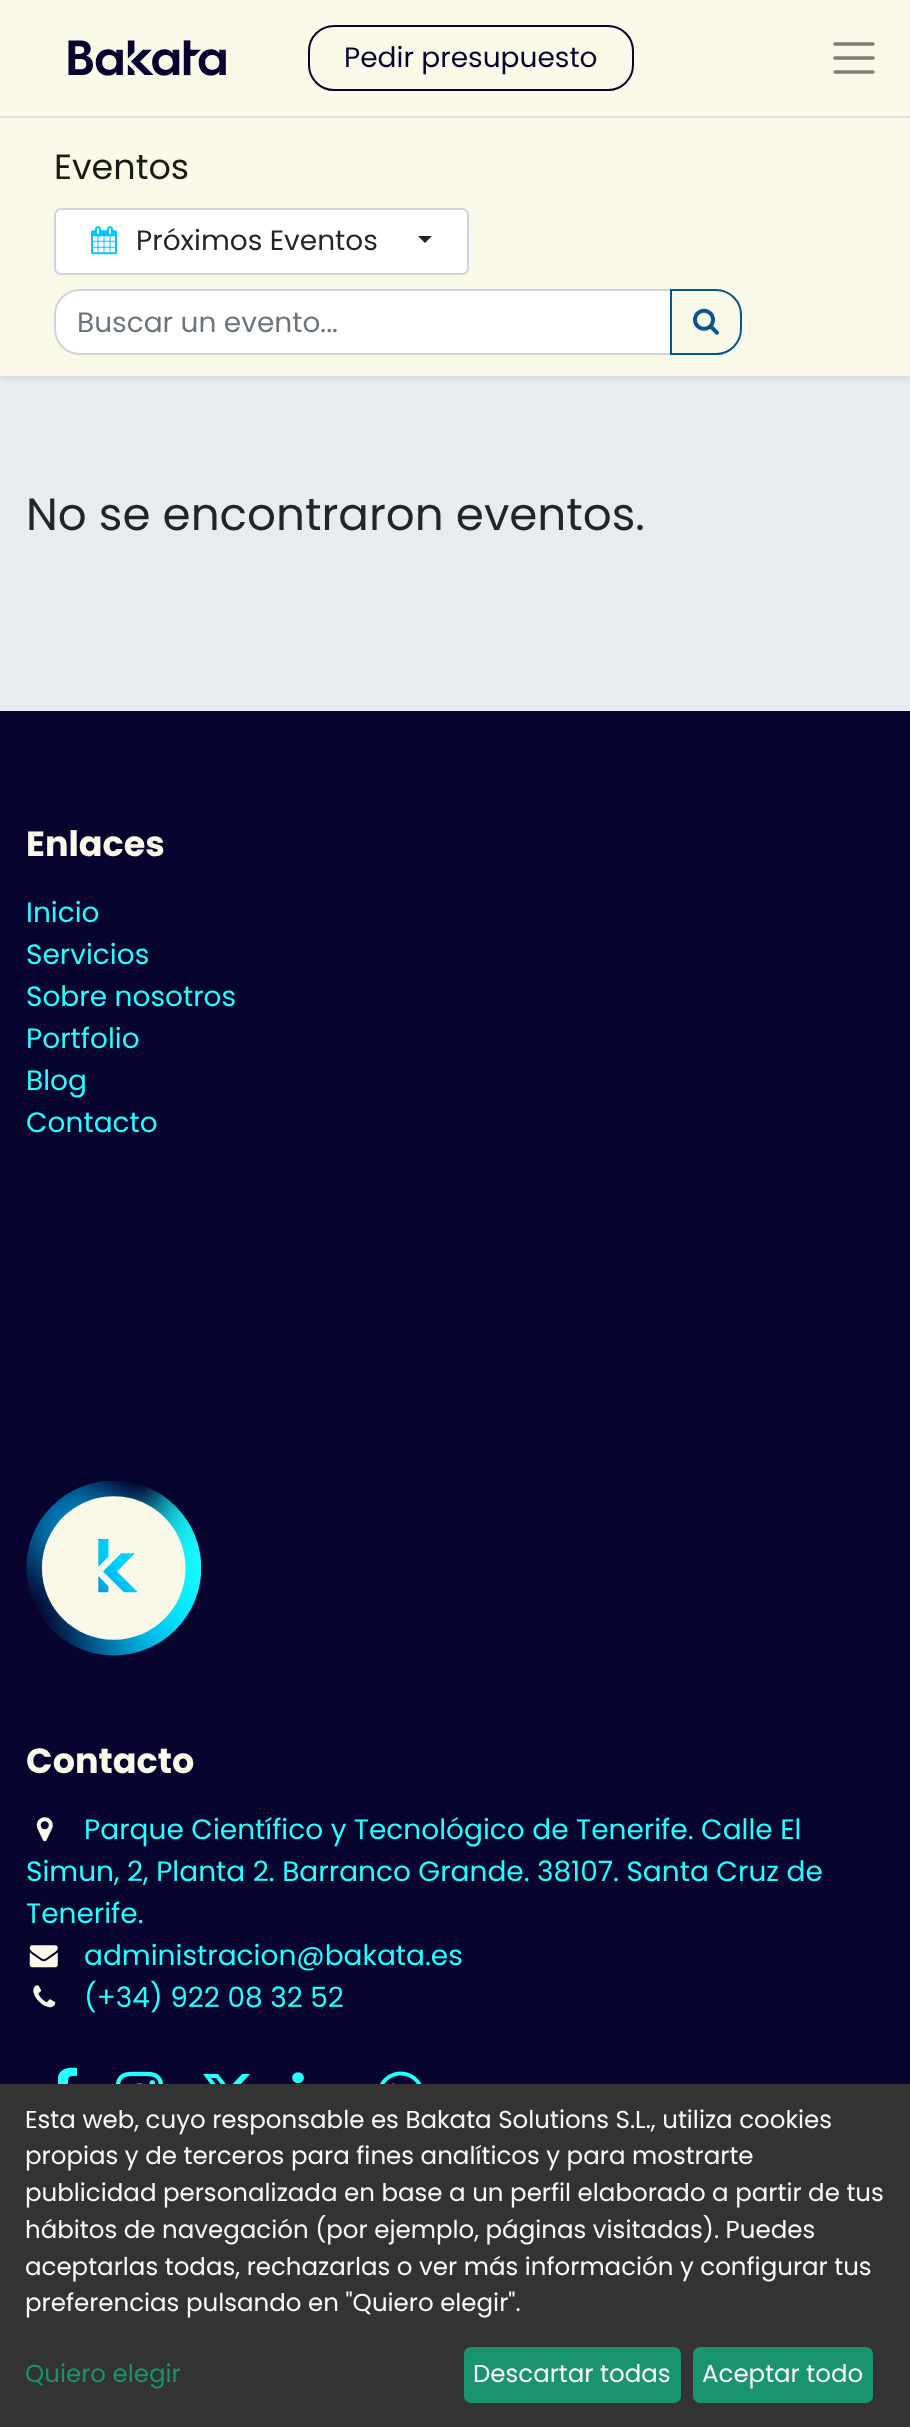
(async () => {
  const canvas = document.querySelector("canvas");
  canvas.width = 910;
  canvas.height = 2427;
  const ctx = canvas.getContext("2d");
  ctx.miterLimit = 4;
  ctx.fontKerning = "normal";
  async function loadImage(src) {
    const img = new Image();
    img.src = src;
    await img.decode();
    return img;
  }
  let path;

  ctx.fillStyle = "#faf9e7";
  ctx.fillRect(0, 0, 910, 2427);
  ctx.drawImage(await loadImage("img/1.png"), 68, 40, 158, 36);
  ctx.beginPath();
  ctx.roundRect(309, 26, 324, 64, 25);
  ctx.strokeStyle = "#07052f";
  ctx.lineWidth = 2;
  ctx.stroke();
  path = new Path2D("M835 44H873M835 58H873M835 72H873");
  ctx.strokeStyle = "#7d7d74";
  ctx.lineWidth = 3.5;
  ctx.lineCap = "round";
  ctx.stroke(path);
  ctx.fillStyle = "#e9ecef";
  ctx.fillRect(0, 376, 910, 335);
  ctx.save();
  ctx.beginPath();
  ctx.rect(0, 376, 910, 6);
  ctx.clip();
  ctx.fillStyle = "rgba(0, 0, 0, 0.07)";
  ctx.filter = "blur(3.5px)";
  ctx.beginPath();
  ctx.rect(0, 119, 910, 261);
  ctx.fill();
  ctx.filter = "none";
  ctx.restore();
  ctx.fillStyle = "#dee2e6";
  ctx.fillRect(0, 116, 910, 2);
  ctx.fillStyle = "#ffffff";
  ctx.beginPath();
  ctx.roundRect(55, 209, 413, 65, 6);
  ctx.fill();
  ctx.strokeStyle = "#ced4da";
  ctx.lineWidth = 2;
  ctx.stroke();
  ctx.drawImage(await loadImage("img/2.png"), 91, 226, 26, 29);
  ctx.fillStyle = "#212529";
  path = new Path2D("M418 236H432L425 243Z");
  ctx.fill(path);
  ctx.fillStyle = "#ffffff";
  ctx.beginPath();
  ctx.roundRect(55, 290, 616, 64, [25, 0, 0, 25]);
  ctx.fill();
  ctx.stroke();
  ctx.beginPath();
  ctx.roundRect(671, 290, 70, 64, [0, 25, 25, 0]);
  ctx.strokeStyle = "#06558f";
  ctx.stroke();
  ctx.drawImage(await loadImage("img/3.png"), 693, 308, 26, 27);
  ctx.fillStyle = "#07052f";
  ctx.fillRect(0, 711, 910, 1373);
  ctx.drawImage(await loadImage("img/4.png"), 26, 1481, 175, 175);
  ctx.drawImage(await loadImage("img/5.png"), 36, 1817, 17, 25);
  ctx.drawImage(await loadImage("img/6.png"), 29, 1945, 29, 23);
  ctx.drawImage(await loadImage("img/7.png"), 33, 1985, 23, 23);
  ctx.fillStyle = "#24ffff";
  path = new Path2D("M77 2068V2076C67 2076 68 2077 68 2087H77L76 2096H68V2120H58V2096H50V2087H58V2077C60 2068 69 2067 77 2068Z");
  ctx.fill(path);
  ctx.drawImage(await loadImage("img/8.png"), 115, 2071, 49, 13);
  path = new Path2D("M242 2074H250L233 2093L252 2119H237L225 2103L211 2119H203L221 2098L203 2074H218L229 2088ZM239 2114H243L216 2078H211Z");
  ctx.fill(path);
  ctx.drawImage(await loadImage("img/9.png"), 292, 2072, 12, 12);
  ctx.drawImage(await loadImage("img/10.png"), 380, 2071, 42, 13);
  ctx.fillStyle = "#333333";
  ctx.fillRect(0, 2084, 910, 343);
  ctx.fillStyle = "#1a936f";
  ctx.beginPath();
  ctx.roundRect(464, 2347, 217, 56, 7);
  ctx.fill();
  ctx.beginPath();
  ctx.roundRect(693, 2347, 180, 56, 7);
  ctx.fill();
  ctx.font = "28px Poppins";
  ctx.fillStyle = "#07052f";
  ctx.fillText("Pedir presupuesto", 344, 67);
  ctx.font = "35px Poppins";
  ctx.fillStyle = "#191917";
  ctx.fillText("Eventos", 54, 179);
  ctx.font = "28px Poppins";
  ctx.fillStyle = "#212529";
  ctx.fillText("Próximos Eventos", 136, 250);
  ctx.fillStyle = "#6c757d";
  ctx.fillText("Buscar un evento...", 77, 332);
  ctx.font = "45.25px Poppins";
  ctx.fillStyle = "#212529";
  ctx.fillText("No se encontraron eventos.", 26, 530);
  ctx.font = "bold 35px Poppins";
  ctx.fillStyle = "#faf9e7";
  ctx.fillText("Enlaces", 26, 856);
  ctx.font = "28px Poppins";
  ctx.fillStyle = "#24ffff";
  for (const [text, x, y] of [
    ["Inicio", 26, 922],
    ["Servicios", 26, 964],
    ["Sobre nosotros", 26, 1006],
    ["Portfolio", 26, 1048],
    ["Blog", 26, 1090],
    ["Contacto", 26, 1132],
  ]) {
    ctx.fillText(text, x, y);
  }
  ctx.font = "bold 35px Poppins";
  ctx.fillStyle = "#faf9e7";
  ctx.fillText("Contacto", 26, 1773);
  ctx.font = "28px Poppins";
  ctx.fillStyle = "#24ffff";
  for (const [text, x, y] of [
    ["Parque Científico y Tecnológico de Tenerife. Calle El", 84, 1839],
    ["Simun, 2, Planta 2. Barranco Grande. 38107. Santa Cruz de", 26, 1881],
    ["Tenerife.", 26, 1923],
    ["administracion@bakata.es", 84, 1965],
    ["(+34) 922 08 32 52", 84, 2007],
  ]) {
    ctx.fillText(text, x, y);
  }
  ctx.font = "24.5px Poppins";
  ctx.fillStyle = "#fafafa";
  for (const [text, x, y] of [
    ["Esta web, cuyo responsable es Bakata Solutions S.L., utiliza cookies", 25, 2128],
    ["propias y de terceros para fines analíticos y para mostrarte", 25, 2164],
    ["publicidad personalizada en base a un perfil elaborado a partir de tus", 25, 2201],
    ["hábitos de navegación (por ejemplo, páginas visitadas). Puedes", 25, 2238],
    ["aceptarlas todas, rechazarlas o ver más información y configurar tus", 25, 2275],
    ["preferencias pulsando en \"Quiero elegir\".", 25, 2311],
  ]) {
    ctx.fillText(text, x, y);
  }
  ctx.fillStyle = "#1a936f";
  ctx.fillText("Quiero elegir", 25, 2382);
  ctx.fillStyle = "#fafafa";
  ctx.fillText("Descartar todas", 473, 2382);
  ctx.fillText("Aceptar todo", 702, 2382);
})();
